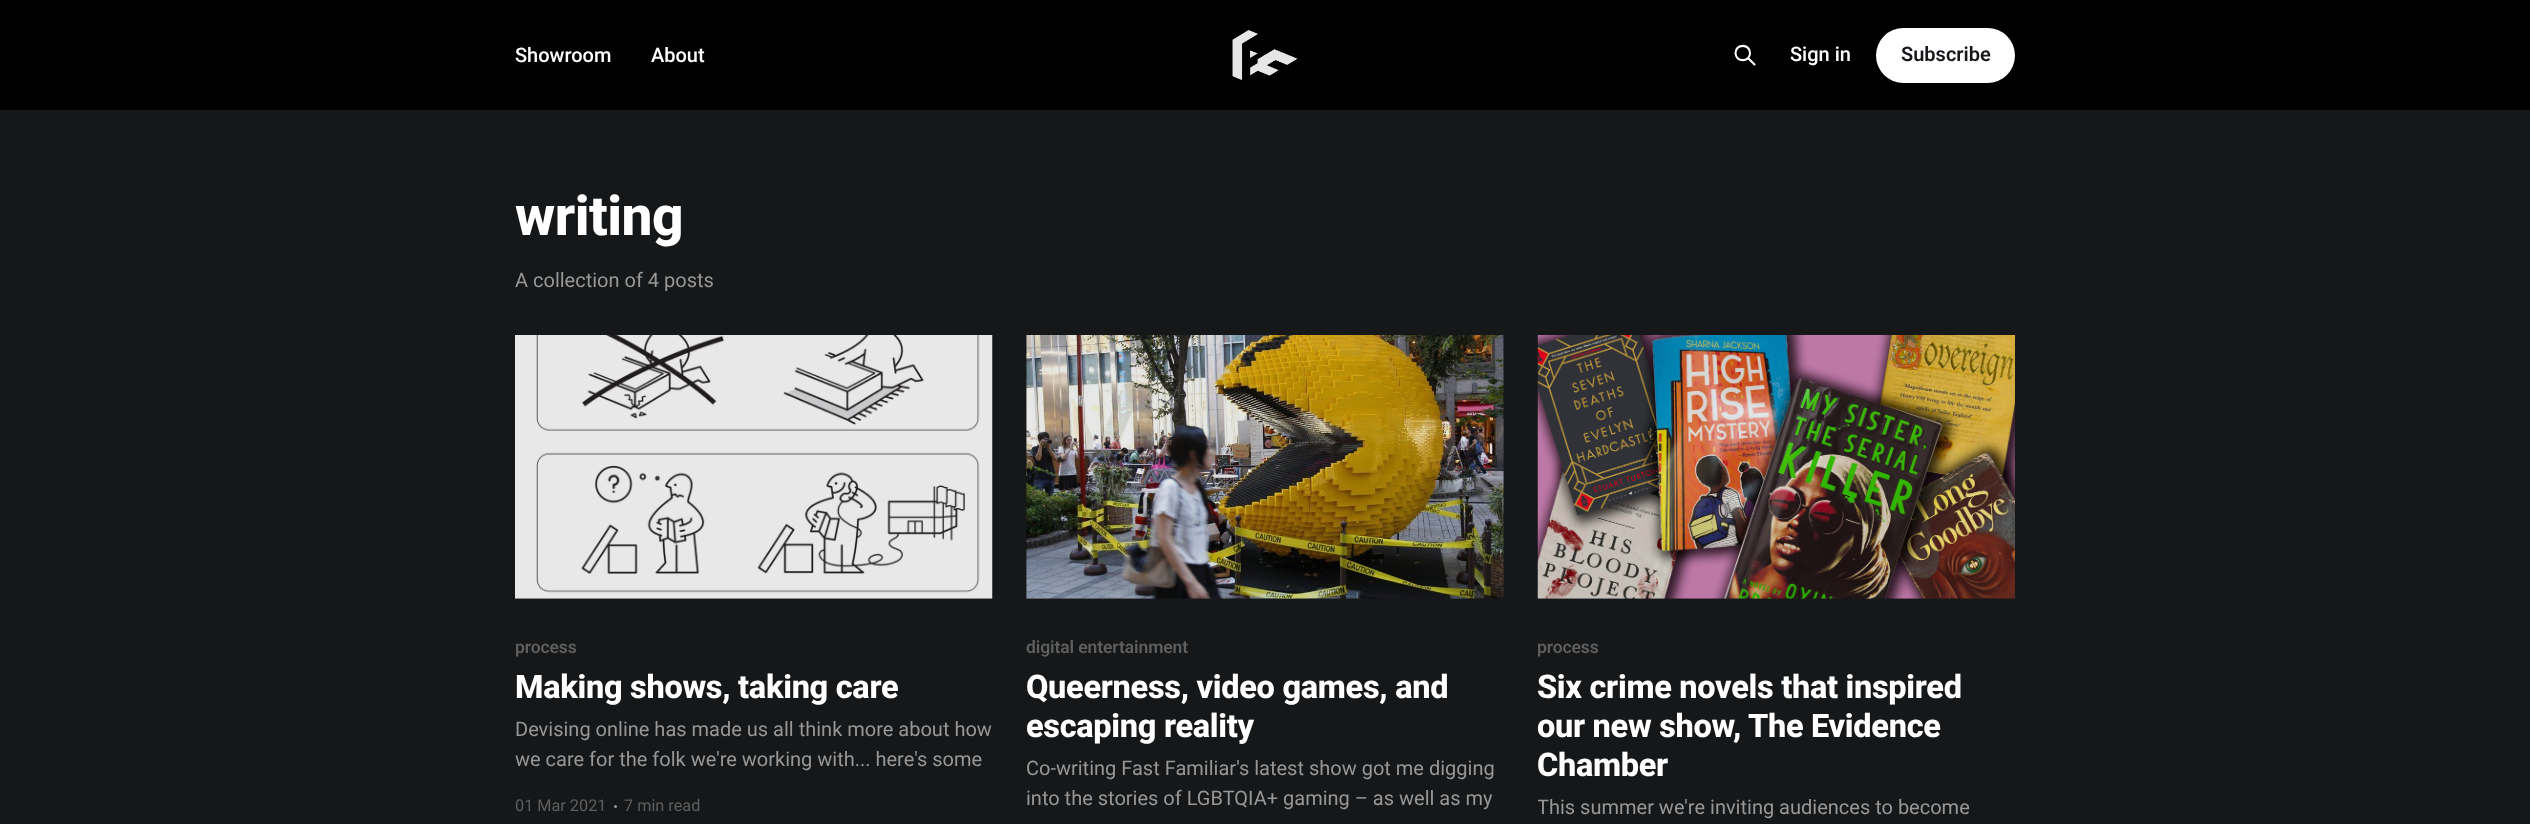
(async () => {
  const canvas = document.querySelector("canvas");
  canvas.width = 2530;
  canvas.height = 824;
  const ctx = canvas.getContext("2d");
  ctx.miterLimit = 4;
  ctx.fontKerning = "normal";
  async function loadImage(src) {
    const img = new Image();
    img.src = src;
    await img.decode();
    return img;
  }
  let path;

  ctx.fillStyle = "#151719";
  ctx.fillRect(0, 0, 2530, 824);
  ctx.fillStyle = "#000000";
  ctx.fillRect(0, 0, 2530, 110);
  ctx.drawImage(await loadImage("img/1.png"), 1232, 30, 66, 50);
  path = new Path2D("M1754.5 64.5L1748 58M1750 53C1750 62.5 1735.5 62.5 1735.5 53C1735.5 43.5 1750 43.5 1750 53Z");
  ctx.strokeStyle = "#ffffff";
  ctx.lineWidth = 2.1;
  ctx.lineCap = "round";
  ctx.lineJoin = "round";
  ctx.stroke(path);
  ctx.fillStyle = "#ffffff";
  ctx.beginPath();
  ctx.roundRect(1876, 28, 139, 55, 27.5);
  ctx.fill();
  ctx.drawImage(await loadImage("img/2.png"), 515, 335, 478, 264);
  ctx.fillStyle = "#979797";
  ctx.beginPath();
  ctx.arc(615.5, 806.5, 1.5, 0, Math.PI * 2);
  ctx.fill();
  ctx.drawImage(await loadImage("img/3.png"), 1026, 335, 478, 264);
  ctx.drawImage(await loadImage("img/4.png"), 1537, 335, 478, 264);
  ctx.font = "500 20px Roboto";
  ctx.fillStyle = "#ffffff";
  for (const [text, x, y] of [
    ["Showroom", 515, 62],
    ["About", 651, 62],
    ["Sign in", 1790, 61],
  ]) {
    ctx.fillText(text, x, y);
  }
  ctx.font = "600 20px Roboto";
  ctx.fillStyle = "#15171a";
  ctx.fillText("Subscribe", 1901, 61);
  ctx.letterSpacing = "-0.5px";
  ctx.font = "800 55px Roboto";
  ctx.fillStyle = "#ffffff";
  ctx.fillText("writing", 515, 235);
  ctx.letterSpacing = "0px";
  ctx.font = "20px Roboto";
  ctx.fillStyle = "#979797";
  ctx.fillText("A collection of 4 posts", 515, 287);
  ctx.letterSpacing = "-0.1px";
  ctx.font = "600 17.5px Roboto";
  ctx.fillStyle = "#5f5f5f";
  ctx.fillText("process", 515, 653);
  ctx.letterSpacing = "-0.3px";
  ctx.font = "800 32.5px Roboto";
  ctx.fillStyle = "#ffffff";
  ctx.fillText("Making shows, taking care", 515, 698);
  ctx.letterSpacing = "0px";
  ctx.font = "20px Roboto";
  ctx.fillStyle = "#979797";
  ctx.fillText("Devising online has made us all think more about how", 515, 736);
  ctx.fillText("we care for the folk we're working with... here's some", 515, 766);
  ctx.font = "16.25px Roboto";
  ctx.fillStyle = "#5f5f5f";
  ctx.fillText("01 Mar 2021", 515, 811);
  ctx.fillText("7 min read", 624, 811);
  ctx.letterSpacing = "-0.1px";
  ctx.font = "600 17.5px Roboto";
  ctx.fillText("digital entertainment", 1026, 653);
  ctx.letterSpacing = "-0.3px";
  ctx.font = "800 32.5px Roboto";
  ctx.fillStyle = "#ffffff";
  ctx.fillText("Queerness, video games, and", 1026, 698);
  ctx.fillText("escaping reality", 1026, 737);
  ctx.letterSpacing = "0px";
  ctx.font = "20px Roboto";
  ctx.fillStyle = "#979797";
  ctx.fillText("Co-writing Fast Familiar's latest show got me digging", 1026, 775);
  ctx.fillText("into the stories of LGBTQIA+ gaming – as well as my", 1026, 805);
  ctx.letterSpacing = "-0.1px";
  ctx.font = "600 17.5px Roboto";
  ctx.fillStyle = "#5f5f5f";
  ctx.fillText("process", 1537, 653);
  ctx.letterSpacing = "-0.3px";
  ctx.font = "800 32.5px Roboto";
  ctx.fillStyle = "#ffffff";
  for (const [text, x, y] of [
    ["Six crime novels that inspired", 1537, 698],
    ["our new show, The Evidence", 1537, 737],
    ["Chamber", 1537, 776],
  ]) {
    ctx.fillText(text, x, y);
  }
  ctx.save();
  ctx.beginPath();
  ctx.rect(1538, 793, 477, 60);
  ctx.clip();
  ctx.letterSpacing = "0px";
  ctx.font = "20px Roboto";
  ctx.fillStyle = "#979797";
  ctx.fillText("This summer we're inviting audiences to become", 1537, 814);
  ctx.restore();
})();
